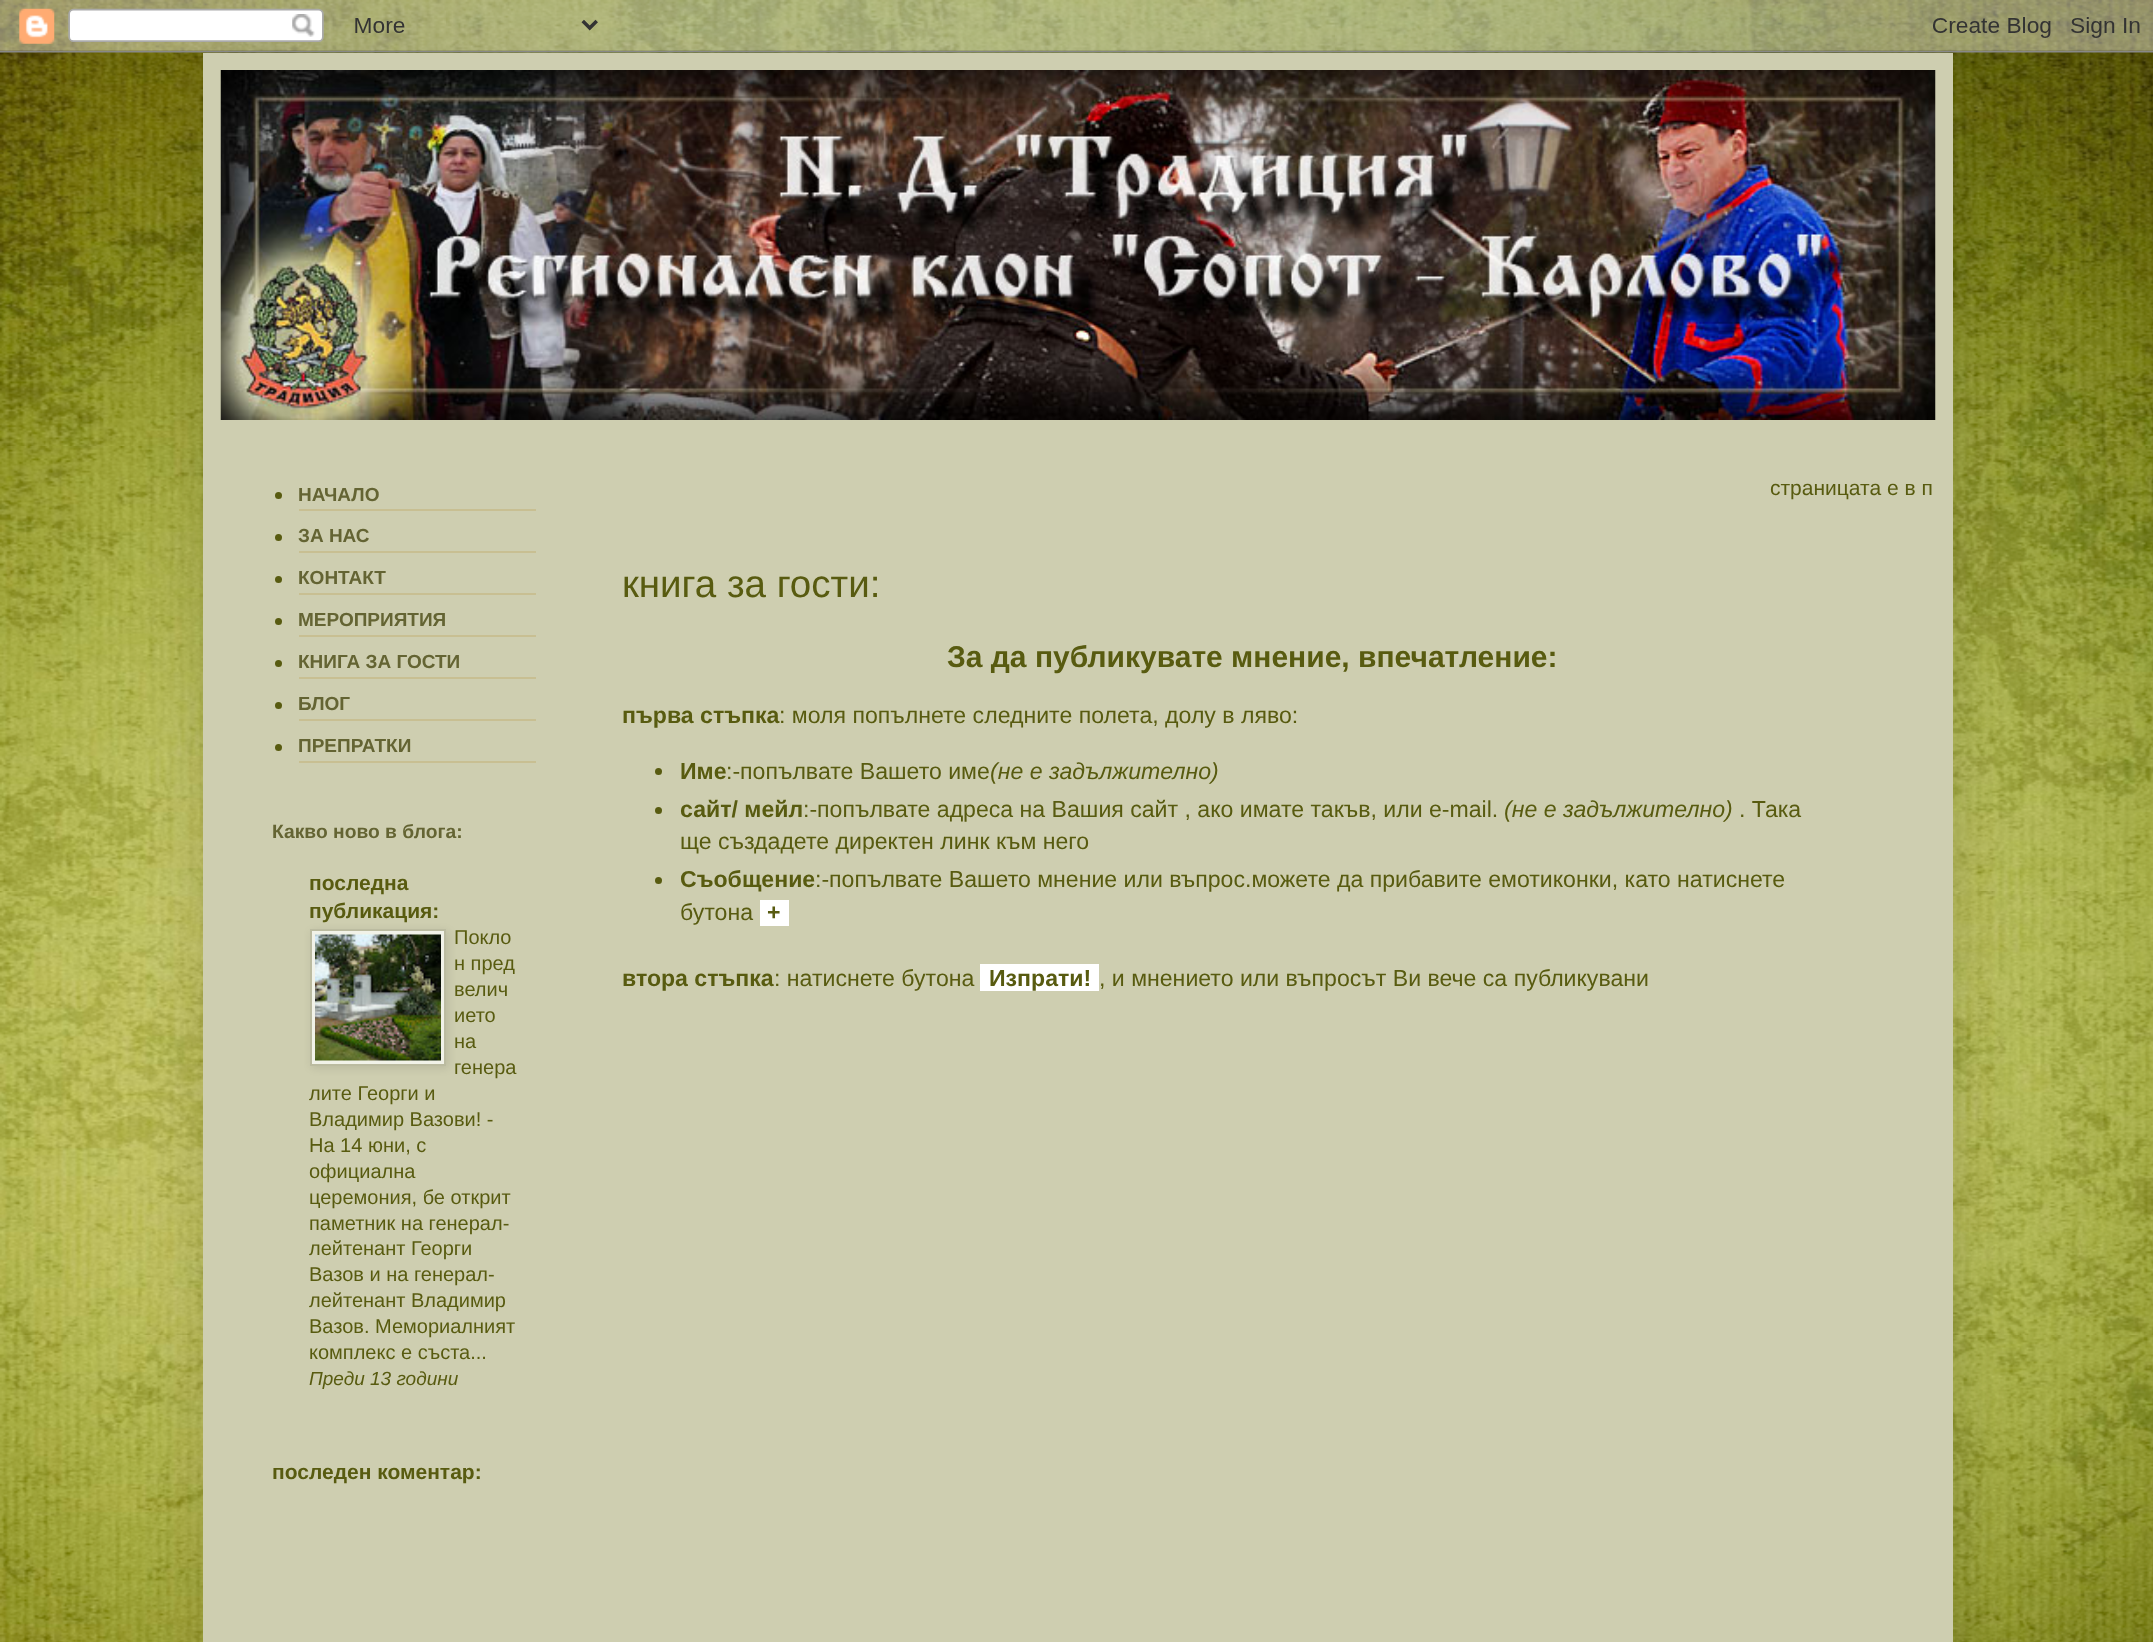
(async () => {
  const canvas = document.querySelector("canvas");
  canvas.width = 2153;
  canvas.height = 1642;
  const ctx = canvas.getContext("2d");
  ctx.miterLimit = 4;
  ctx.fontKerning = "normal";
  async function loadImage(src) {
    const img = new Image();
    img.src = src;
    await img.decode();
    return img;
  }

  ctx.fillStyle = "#ffffff";
  ctx.fillRect(0, 0, 2153, 1642);
  ctx.drawImage(await loadImage("img/1.png"), 0, 0, 2153, 1642);
  ctx.fillStyle = "rgba(0, 0, 0, 0.15)";
  ctx.filter = "blur(35px)";
  ctx.beginPath();
  ctx.rect(203, 53, 1750, 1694);
  ctx.fill();
  ctx.filter = "none";
  ctx.drawImage(await loadImage("img/2.png"), 0, 0, 2153, 53);
  ctx.fillStyle = "#ceceb0";
  ctx.fillRect(203, 53, 1750, 1589);
  ctx.drawImage(await loadImage("img/3.png"), 220, 70, 1716, 350);
  ctx.fillStyle = "#585b10";
  ctx.beginPath();
  ctx.arc(278.5, 495.5, 3.5, 0, Math.PI * 2);
  ctx.fill();
  ctx.fillStyle = "#c8bf92";
  ctx.fillRect(299, 509, 237, 2);
  ctx.fillStyle = "#585b10";
  ctx.beginPath();
  ctx.arc(278.5, 537.5, 3.5, 0, Math.PI * 2);
  ctx.fill();
  ctx.fillStyle = "#c8bf92";
  ctx.fillRect(299, 551, 237, 2);
  ctx.fillStyle = "#585b10";
  ctx.beginPath();
  ctx.arc(278.5, 579.5, 3.5, 0, Math.PI * 2);
  ctx.fill();
  ctx.fillStyle = "#c8bf92";
  ctx.fillRect(299, 593, 237, 2);
  ctx.fillStyle = "#585b10";
  ctx.beginPath();
  ctx.arc(278.5, 621.5, 3.5, 0, Math.PI * 2);
  ctx.fill();
  ctx.fillStyle = "#c8bf92";
  ctx.fillRect(299, 635, 237, 2);
  ctx.fillStyle = "#585b10";
  ctx.beginPath();
  ctx.arc(278.5, 663.5, 3.5, 0, Math.PI * 2);
  ctx.fill();
  ctx.fillStyle = "#c8bf92";
  ctx.fillRect(299, 677, 237, 2);
  ctx.fillStyle = "#585b10";
  ctx.beginPath();
  ctx.arc(278.5, 705.5, 3.5, 0, Math.PI * 2);
  ctx.fill();
  ctx.fillStyle = "#c8bf92";
  ctx.fillRect(299, 719, 237, 2);
  ctx.fillStyle = "#585b10";
  ctx.beginPath();
  ctx.arc(278.5, 747.5, 3.5, 0, Math.PI * 2);
  ctx.fill();
  ctx.fillStyle = "#c8bf92";
  ctx.fillRect(299, 761, 237, 2);
  ctx.fillStyle = "rgba(0, 0, 0, 0.1)";
  ctx.filter = "blur(4.5px)";
  ctx.beginPath();
  ctx.rect(312, 931, 136, 137);
  ctx.fill();
  ctx.filter = "none";
  ctx.fillStyle = "#f1f2e8";
  ctx.beginPath();
  ctx.rect(311, 930, 134, 135);
  ctx.fill();
  ctx.strokeStyle = "#bbbba0";
  ctx.lineWidth = 2;
  ctx.stroke();
  ctx.drawImage(await loadImage("img/4.png"), 315, 934, 126, 127);
  ctx.fillStyle = "#585b10";
  ctx.beginPath();
  ctx.arc(658.5, 771.5, 3.5, 0, Math.PI * 2);
  ctx.fill();
  ctx.beginPath();
  ctx.arc(658.5, 810.5, 3.5, 0, Math.PI * 2);
  ctx.fill();
  ctx.beginPath();
  ctx.arc(658.5, 880.5, 3.5, 0, Math.PI * 2);
  ctx.fill();
  ctx.fillStyle = "#ffffff";
  ctx.fillRect(760, 900, 29, 26);
  ctx.fillRect(980, 964, 119, 27);
  ctx.font = "bold 19px Liberation Sans";
  ctx.fillStyle = "#646433";
  for (const [text, x, y] of [
    ["НАЧАЛО", 298, 501],
    ["ЗА НАС", 298, 542],
    ["КОНТАКТ", 298, 584],
    ["МЕРОПРИЯТИЯ", 298, 626],
    ["КНИГА ЗА ГОСТИ", 298, 668],
    ["БЛОГ", 298, 710],
    ["ПРЕПРАТКИ", 298, 752],
  ]) {
    ctx.fillText(text, x, y);
  }
  ctx.font = "bold 19.25px Liberation Sans";
  ctx.fillText("Какво ново в блога:", 272, 838);
  ctx.font = "bold 21px Liberation Sans";
  ctx.fillStyle = "#585b10";
  ctx.fillText("последна", 309, 890);
  ctx.fillText("публикация:", 309, 918);
  ctx.font = "20px Liberation Sans";
  for (const [text, x, y] of [
    ["Покло", 454, 944],
    ["н пред", 454, 970],
    ["велич", 454, 996],
    ["ието", 454, 1022],
    ["на", 454, 1048],
    ["генера", 454, 1074],
    ["лите Георги и", 309, 1100],
    ["Владимир Вазови! -", 309, 1126],
    ["На 14 юни, с", 309, 1152],
    ["официална", 309, 1178],
    ["церемония, бе открит", 309, 1204],
    ["паметник на генерал-", 309, 1230],
    ["лейтенант Георги", 309, 1255],
    ["Вазов и на генерал-", 309, 1281],
    ["лейтенант Владимир", 309, 1307],
    ["Вазов. Мемориалният", 309, 1333],
    ["комплекс е съста...", 309, 1359],
  ]) {
    ctx.fillText(text, x, y);
  }
  ctx.font = "italic 19px Liberation Sans";
  ctx.fillText("Преди 13 години", 309, 1385);
  ctx.font = "bold 21px Liberation Sans";
  ctx.fillText("последен коментар:", 272, 1479);
  ctx.font = "21px Liberation Sans";
  ctx.fillText("страницата е в п", 1770, 495);
  ctx.font = "38.5px Liberation Sans";
  ctx.fillText("книга за гости:", 622, 597);
  ctx.font = "bold 30px Liberation Sans";
  ctx.fillText("За да публикувате мнение, впечатление:", 947, 667);
  ctx.font = "bold 23.1px Liberation Sans";
  ctx.fillText("първа стъпка", 622, 723);
  ctx.font = "23.1px Liberation Sans";
  ctx.fillText(": моля попълнете следните полета, долу в ляво:", 779, 723);
  ctx.font = "bold 23.1px Liberation Sans";
  ctx.fillText("Име", 680, 779);
  ctx.font = "23.1px Liberation Sans";
  ctx.fillText(":-попълвате Вашето име", 726, 779);
  ctx.font = "italic 23.1px Liberation Sans";
  ctx.fillText("(не е задължително)", 990, 779);
  ctx.font = "bold 23.1px Liberation Sans";
  ctx.fillText("сайт/ мейл", 680, 817);
  ctx.font = "23.1px Liberation Sans";
  ctx.fillText(":-попълвате адреса на Вашия сайт , ако имате такъв, или e-mail.", 803, 817);
  ctx.font = "italic 23.1px Liberation Sans";
  ctx.fillText("(не е задължително)", 1504, 817);
  ctx.font = "23.1px Liberation Sans";
  ctx.fillText(". Така", 1739, 817);
  ctx.fillText("ще създадете директен линк към него", 680, 849);
  ctx.font = "bold 23.1px Liberation Sans";
  ctx.fillText("Съобщение", 680, 887);
  ctx.font = "23.1px Liberation Sans";
  ctx.fillText(":-попълвате Вашето мнение или въпрос.можете да прибавите емотиконки, като натиснете", 815, 887);
  ctx.fillText("бутона", 680, 920);
  ctx.font = "bold 23.1px Liberation Sans";
  ctx.fillText("+", 767, 920);
  ctx.fillText("втора стъпка", 622, 986);
  ctx.font = "23.1px Liberation Sans";
  ctx.fillText(": натиснете бутонa", 774, 986);
  ctx.font = "bold 23.1px Liberation Sans";
  ctx.fillText("Изпрати!", 989, 986);
  ctx.font = "23.1px Liberation Sans";
  ctx.fillText(", и мнението или въпросът Ви вече са публикувани", 1099, 986);
})();
